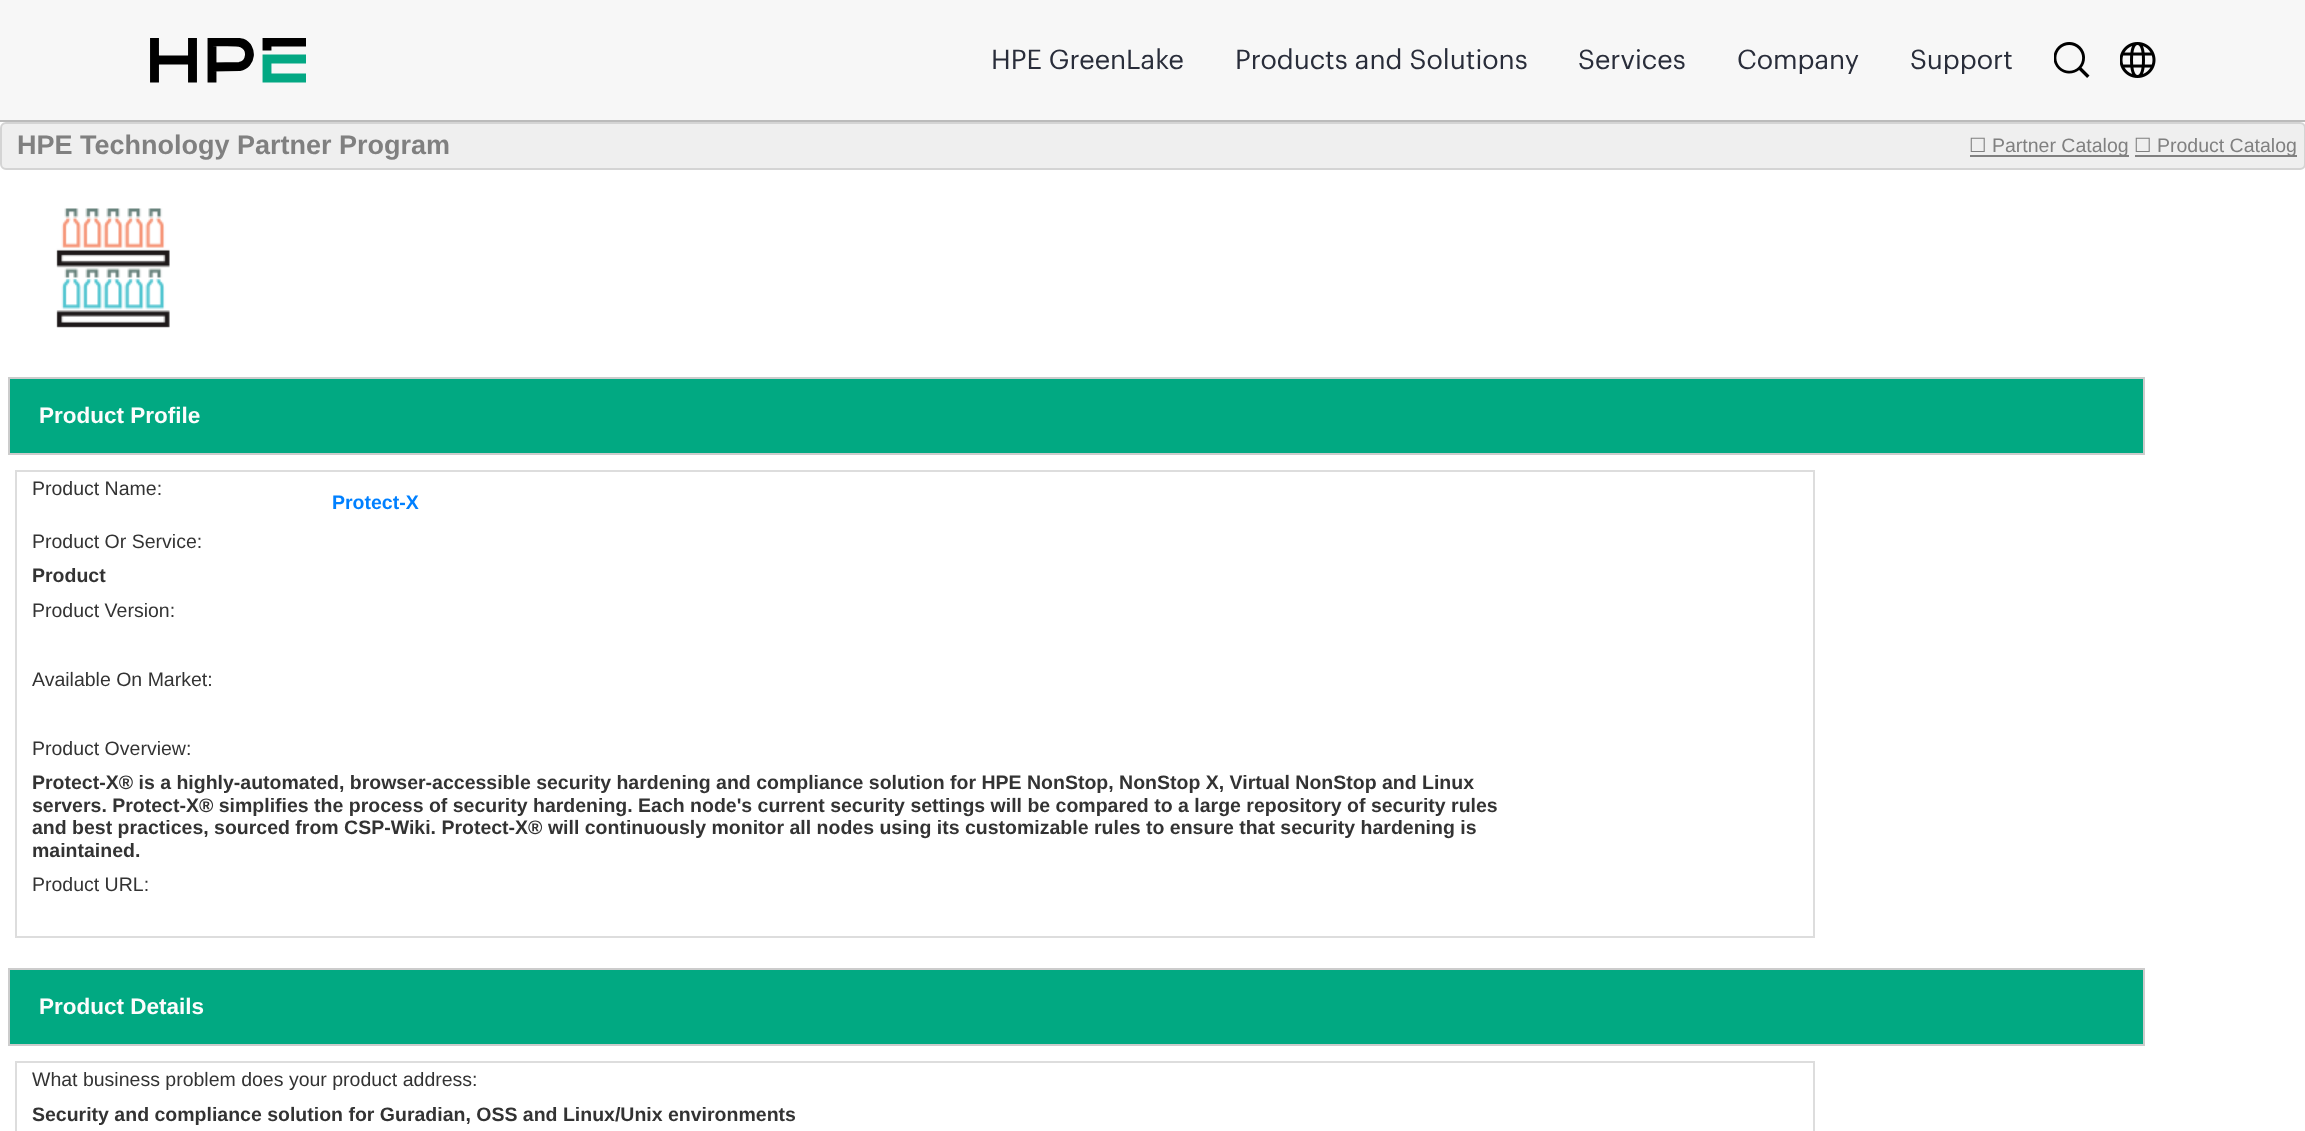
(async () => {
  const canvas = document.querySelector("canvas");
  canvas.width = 2305;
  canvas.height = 1131;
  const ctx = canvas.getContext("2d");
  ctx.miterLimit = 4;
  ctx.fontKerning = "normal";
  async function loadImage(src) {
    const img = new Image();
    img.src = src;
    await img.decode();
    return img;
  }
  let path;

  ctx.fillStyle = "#ffffff";
  ctx.fillRect(0, 0, 2305, 1131);
  ctx.fillStyle = "#bbbbbb";
  ctx.fillRect(0, 120, 2305, 2);
  ctx.fillStyle = "#f7f7f7";
  ctx.fillRect(0, 0, 2305, 120);
  ctx.save();
  ctx.beginPath();
  ctx.rect(150, 38, 156, 45);
  ctx.clip();
  path = new Path2D("M154.5 82.5V37.5M192.5 82.5V37.5M154.5 60H188.5M212 82.5V37.5M212 42C218.5 42 237 41 242 43C253 47.5 251.5 64.5 239.5 66.5L212 67M267 50.5V42H306");
  ctx.strokeStyle = "#000000";
  ctx.lineWidth = 8.9;
  ctx.stroke(path);
  ctx.restore();
  path = new Path2D("M306 78H267V59H306");
  ctx.strokeStyle = "#03a883";
  ctx.lineWidth = 8.9;
  ctx.stroke(path);
  ctx.drawImage(await loadImage("img/1.png"), 2054, 42, 36, 36);
  ctx.drawImage(await loadImage("img/2.png"), 2120, 42, 36, 36);
  ctx.fillStyle = "#efefef";
  ctx.beginPath();
  ctx.roundRect(1, 123, 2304, 46, 5);
  ctx.fill();
  ctx.strokeStyle = "#d4d4d4";
  ctx.lineWidth = 2;
  ctx.stroke();
  ctx.fillStyle = "#808080";
  ctx.fillRect(1970, 155, 159, 2);
  ctx.fillRect(2135, 155, 162, 2);
  ctx.drawImage(await loadImage("img/3.png"), 56, 208, 114, 120);
  ctx.fillStyle = "#01a982";
  ctx.beginPath();
  ctx.rect(9, 378, 2135, 76);
  ctx.fill();
  ctx.strokeStyle = "#cccccc";
  ctx.stroke();
  ctx.strokeStyle = "#dddddd";
  ctx.strokeRect(16, 471, 1798, 466);
  ctx.beginPath();
  ctx.rect(9, 969, 2135, 76);
  ctx.fill();
  ctx.strokeStyle = "#cccccc";
  ctx.stroke();
  ctx.strokeStyle = "#dddddd";
  ctx.strokeRect(16, 1062, 1798, 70);
  ctx.font = "27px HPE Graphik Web";
  ctx.fillStyle = "#292d3a";
  for (const [text, x, y] of [
    ["HPE GreenLake", 991, 69],
    ["Products and Solutions", 1235, 69],
    ["Services", 1578, 69],
    ["Company", 1737, 69],
    ["Support", 1910, 69],
  ]) {
    ctx.fillText(text, x, y);
  }
  ctx.font = "bold 27px Liberation Sans";
  ctx.fillStyle = "#808080";
  ctx.fillText("HPE Technology Partner Program", 17, 154);
  ctx.font = "19.5px DejaVu Sans";
  ctx.fillText("☐", 1969, 152);
  ctx.font = "19.5px Liberation Sans";
  ctx.fillText("Partner Catalog", 1992, 152);
  ctx.font = "19.5px DejaVu Sans";
  ctx.fillText("☐", 2134, 152);
  ctx.font = "19.5px Liberation Sans";
  ctx.fillText("Product Catalog", 2157, 152);
  ctx.font = "bold 22.5px Liberation Sans";
  ctx.fillStyle = "#fcfcfc";
  ctx.fillText("Product Profile", 39, 423);
  ctx.font = "19.5px Liberation Sans";
  ctx.fillStyle = "#333333";
  ctx.fillText("Product Name:", 32, 495);
  ctx.font = "bold 19.5px Liberation Sans";
  ctx.fillStyle = "#0080ff";
  ctx.fillText("Protect-X", 332, 509);
  ctx.font = "19.5px Liberation Sans";
  ctx.fillStyle = "#333333";
  ctx.fillText("Product Or Service:", 32, 548);
  ctx.font = "bold 19.5px Liberation Sans";
  ctx.fillText("Product", 32, 582);
  ctx.font = "19.5px Liberation Sans";
  for (const [text, x, y] of [
    ["Product Version:", 32, 617],
    ["Available On Market:", 32, 686],
    ["Product Overview:", 32, 755],
  ]) {
    ctx.fillText(text, x, y);
  }
  ctx.font = "bold 19.5px Liberation Sans";
  for (const [text, x, y] of [
    ["Protect-X® is a highly-automated, browser-accessible security hardening and compliance solution for HPE NonStop, NonStop X, Virtual NonStop and Linux", 32, 789],
    ["servers. Protect-X® simplifies the process of security hardening. Each node's current security settings will be compared to a large repository of security rules", 32, 812],
    ["and best practices, sourced from CSP-Wiki. Protect-X® will continuously monitor all nodes using its customizable rules to ensure that security hardening is", 32, 834],
    ["maintained.", 32, 857],
  ]) {
    ctx.fillText(text, x, y);
  }
  ctx.font = "19.5px Liberation Sans";
  ctx.fillText("Product URL:", 32, 891);
  ctx.font = "bold 22.5px Liberation Sans";
  ctx.fillStyle = "#fcfcfc";
  ctx.fillText("Product Details", 39, 1014);
  ctx.font = "19.5px Liberation Sans";
  ctx.fillStyle = "#333333";
  ctx.fillText("What business problem does your product address:", 32, 1086);
  ctx.font = "bold 19.5px Liberation Sans";
  ctx.fillText("Security and compliance solution for Guradian, OSS and Linux/Unix environments", 32, 1121);
})();
